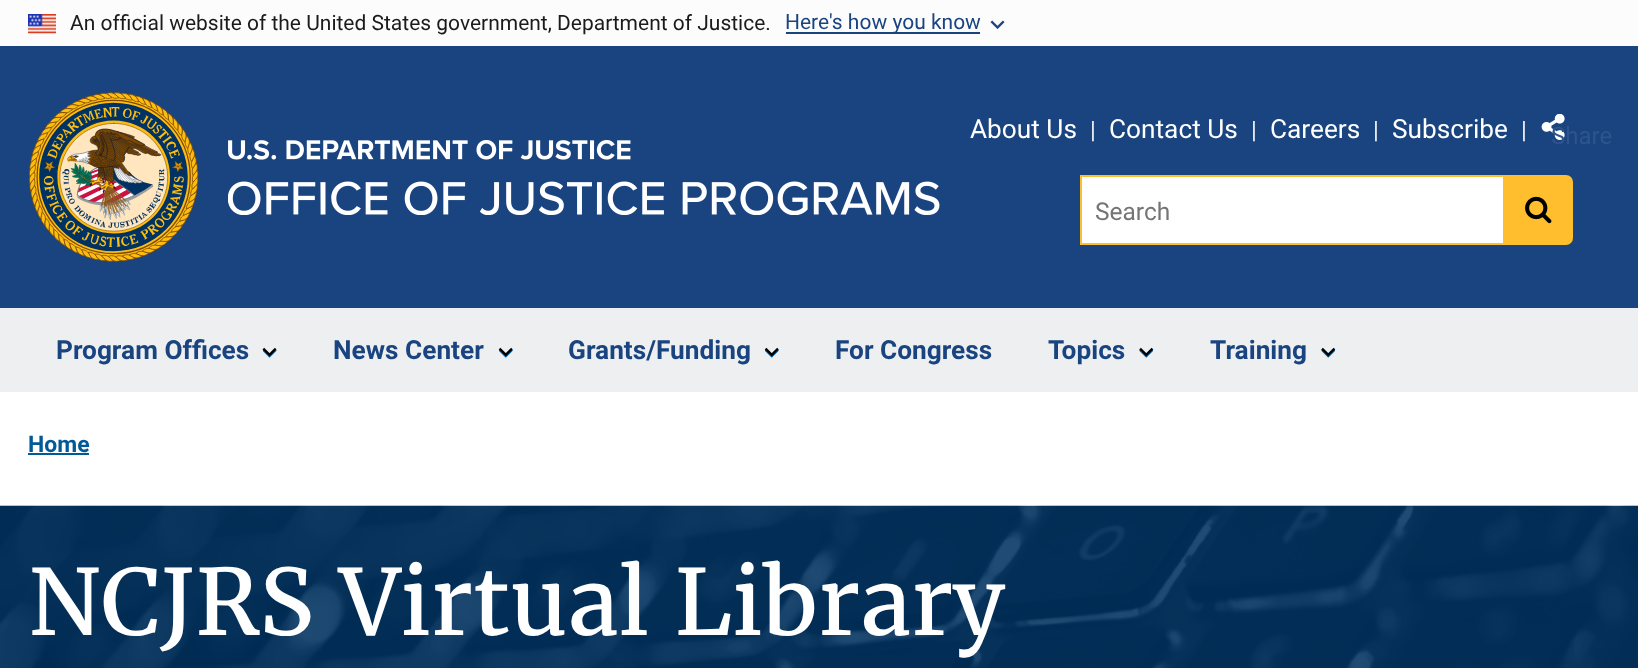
(async () => {
  const canvas = document.querySelector("canvas");
  canvas.width = 1638;
  canvas.height = 668;
  const ctx = canvas.getContext("2d");
  ctx.miterLimit = 4;
  ctx.fontKerning = "normal";
  async function loadImage(src) {
    const img = new Image();
    img.src = src;
    await img.decode();
    return img;
  }

  ctx.fillStyle = "#ffffff";
  ctx.fillRect(0, 0, 1638, 668);
  ctx.fillStyle = "#fcfcfc";
  ctx.fillRect(0, 0, 1638, 46);
  ctx.drawImage(await loadImage("img/1.png"), 28, 14, 28, 20);
  ctx.fillStyle = "#1a4480";
  ctx.fillRect(786, 32, 194, 2);
  ctx.drawImage(await loadImage("img/2.png"), 990, 20, 15, 10);
  ctx.fillRect(0, 46, 1638, 262);
  ctx.drawImage(await loadImage("img/3.png"), 28, 92, 171, 170);
  ctx.drawImage(await loadImage("img/4.png"), 228, 140, 712, 75);
  ctx.fillStyle = "#edeff0";
  ctx.fillRect(0, 308, 1638, 84);
  ctx.drawImage(await loadImage("img/5.png"), 1541, 114, 24, 26);
  for (const [x, y, w, h, color] of [
    [1082, 177, 421, 66, "#ffffff"],
    [1080, 175, 423, 2, "#ffbe2e"],
    [1080, 243, 423, 2, "#ffbe2e"],
    [1080, 175, 2, 70, "#ffbe2e"],
  ]) {
    ctx.fillStyle = color;
    ctx.fillRect(x, y, w, h);
  }
  ctx.beginPath();
  ctx.roundRect(1503, 175, 70, 70, [0, 7, 7, 0]);
  ctx.fill();
  ctx.drawImage(await loadImage("img/6.png"), 1525, 196, 27, 28);
  ctx.drawImage(await loadImage("img/7.png"), 263, 350, 14, 8);
  ctx.drawImage(await loadImage("img/8.png"), 262, 347, 15, 10);
  ctx.drawImage(await loadImage("img/9.png"), 499, 349, 14, 9);
  ctx.drawImage(await loadImage("img/10.png"), 498, 347, 15, 10);
  ctx.drawImage(await loadImage("img/9.png"), 765, 349, 14, 9);
  ctx.drawImage(await loadImage("img/10.png"), 764, 347, 15, 10);
  ctx.drawImage(await loadImage("img/11.png"), 1139, 349, 14, 9);
  ctx.drawImage(await loadImage("img/12.png"), 1139, 347, 15, 10);
  ctx.drawImage(await loadImage("img/11.png"), 1321, 349, 14, 9);
  ctx.drawImage(await loadImage("img/12.png"), 1321, 347, 15, 10);
  ctx.fillStyle = "#005999";
  ctx.fillRect(28, 453, 61, 2);
  ctx.drawImage(await loadImage("img/13.png"), 0, 505, 1638, 163);
  ctx.font = "21px Roboto";
  ctx.fillStyle = "#1b1b1b";
  ctx.fillText("An official website of the United States government, Department of Justice.", 70, 30);
  ctx.fillStyle = "#1a4480";
  ctx.fillText("Here's how you know", 785, 29);
  ctx.font = "26.25px Roboto";
  ctx.fillStyle = "#ffffff";
  ctx.fillText("About Us", 970, 138);
  ctx.font = "24px Roboto";
  ctx.fillStyle = "#edeff0";
  ctx.fillText("|", 1090, 138);
  ctx.font = "26.25px Roboto";
  ctx.fillStyle = "#ffffff";
  ctx.fillText("Contact Us", 1109, 138);
  ctx.font = "24px Roboto";
  ctx.fillStyle = "#edeff0";
  ctx.fillText("|", 1251, 138);
  ctx.font = "26.25px Roboto";
  ctx.fillStyle = "#ffffff";
  ctx.fillText("Careers", 1270, 138);
  ctx.font = "24px Roboto";
  ctx.fillStyle = "#edeff0";
  ctx.fillText("|", 1373, 138);
  ctx.font = "26.25px Roboto";
  ctx.fillStyle = "#ffffff";
  ctx.fillText("Subscribe", 1392, 138);
  ctx.font = "24px Roboto";
  ctx.fillStyle = "#edeff0";
  ctx.fillText("|", 1521, 138);
  ctx.fillStyle = "#2e558b";
  ctx.fillText("Share", 1551, 144);
  ctx.font = "24.5px Roboto";
  ctx.fillStyle = "#757575";
  ctx.fillText("Search", 1095, 220);
  ctx.font = "bold 26.25px Roboto";
  ctx.fillStyle = "#1a4480";
  for (const [text, x, y] of [
    ["Program Offices", 56, 359],
    ["News Center", 333, 359],
    ["Grants/Funding", 568, 359],
    ["For Congress", 835, 359],
    ["Topics", 1048, 359],
    ["Training", 1210, 359],
  ]) {
    ctx.fillText(text, x, y);
  }
  ctx.font = "bold 23px Roboto";
  ctx.fillStyle = "#005999";
  ctx.fillText("Home", 28, 452);
  ctx.font = "91px Merriweather";
  ctx.fillStyle = "#ffffff";
  ctx.fillText("NCJRS Virtual Library", 28, 635);
})();
